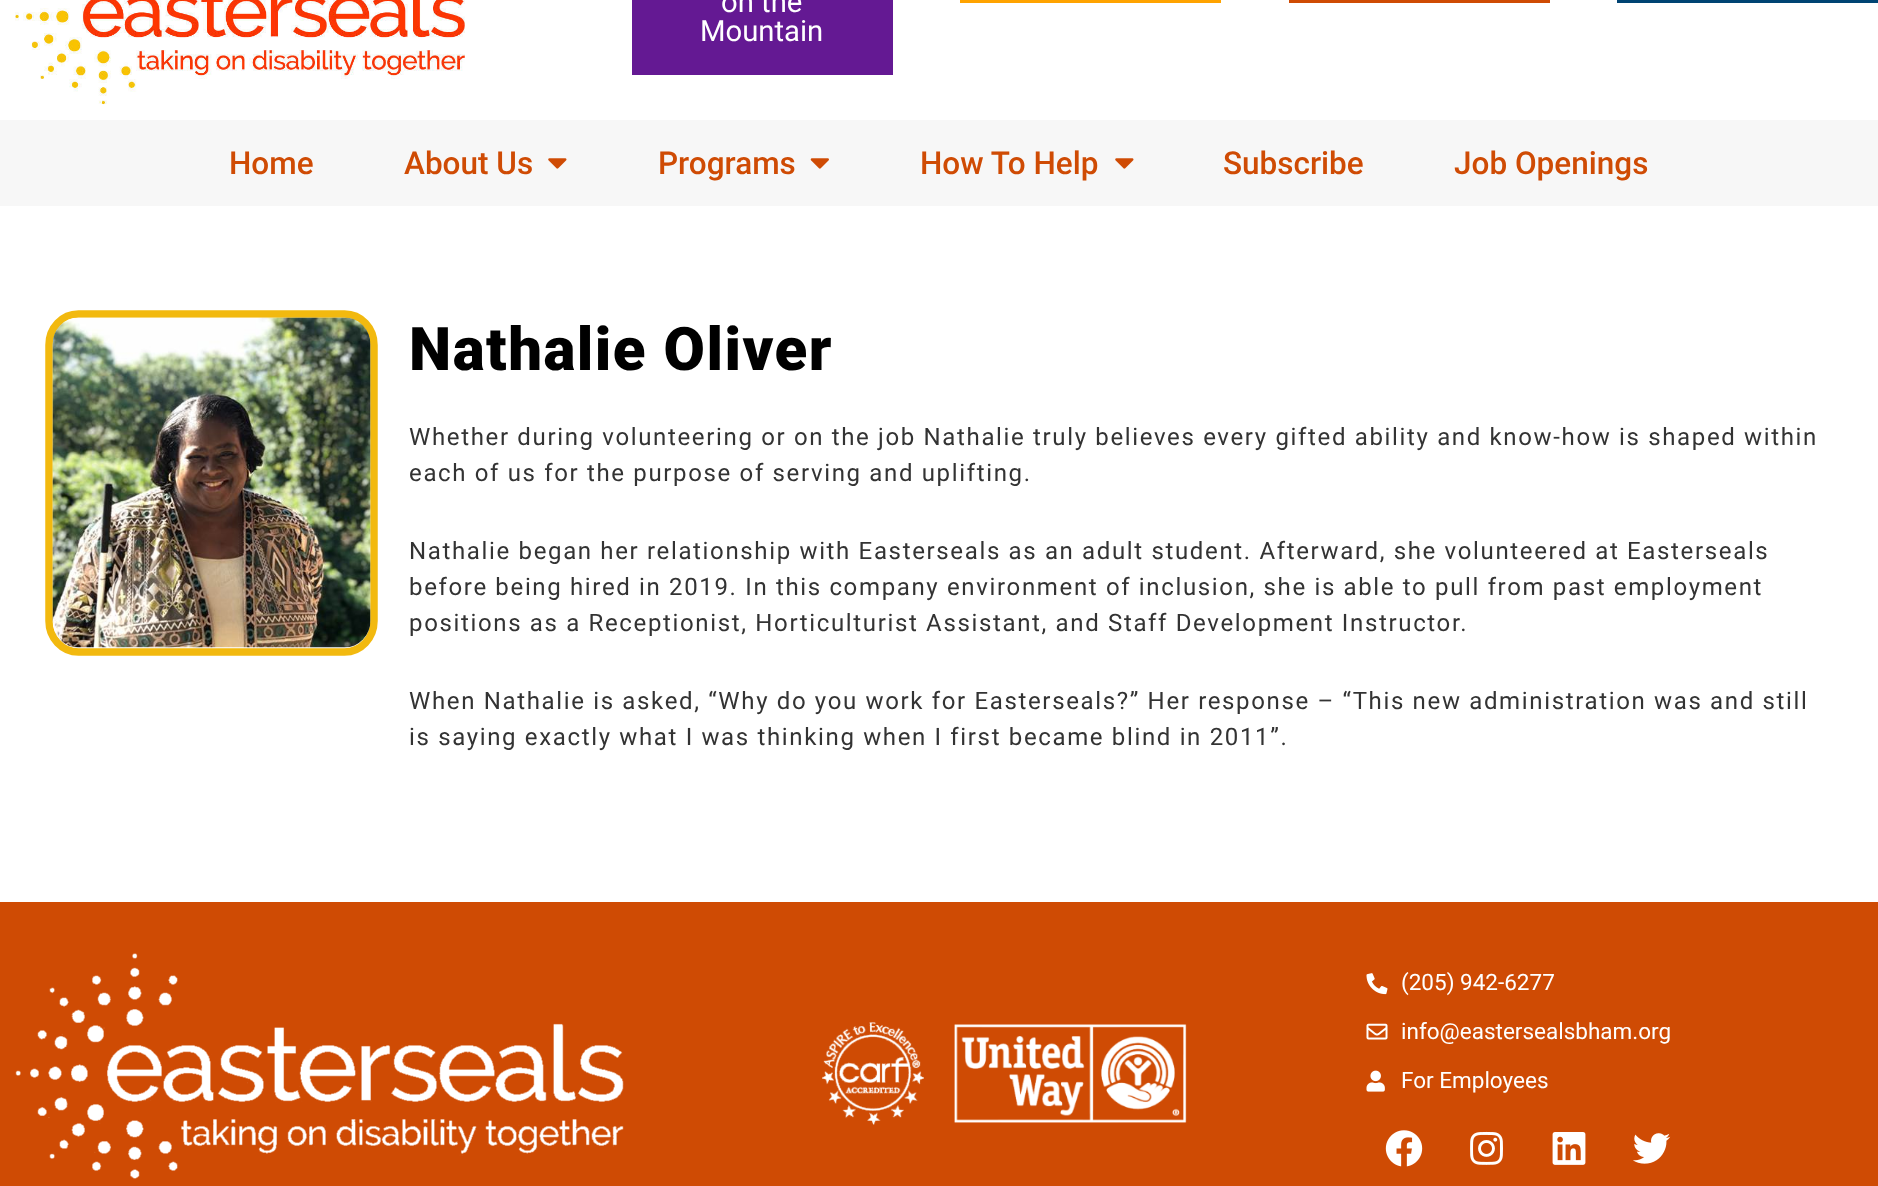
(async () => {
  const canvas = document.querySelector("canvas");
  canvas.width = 1878;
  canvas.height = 1186;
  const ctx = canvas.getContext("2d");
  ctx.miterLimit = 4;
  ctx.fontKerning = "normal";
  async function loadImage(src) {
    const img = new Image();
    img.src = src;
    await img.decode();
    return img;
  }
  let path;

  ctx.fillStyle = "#ffffff";
  ctx.fillRect(0, 0, 1878, 1186);
  ctx.drawImage(await loadImage("img/1.png"), 15, 0, 450, 105);
  for (const [x, y, w, h, color] of [
    [632, 0, 261, 75, "#641993"],
    [960, 0, 261, 3, "#ffa300"],
    [1289, 0, 261, 3, "#cf4b04"],
    [1617, 0, 261, 3, "#004473"],
    [0, 120, 1878, 86, "#f7f7f7"],
  ]) {
    ctx.fillStyle = color;
    ctx.fillRect(x, y, w, h);
  }
  ctx.drawImage(await loadImage("img/2.png"), 548, 158, 19, 11);
  ctx.drawImage(await loadImage("img/3.png"), 810, 158, 19, 11);
  ctx.drawImage(await loadImage("img/2.png"), 1115, 158, 19, 11);
  path = new Path2D("M78.5 314H344.5C361 314 374 328 374 345V621C374 638 361 652 344.5 652H78.5C62 652 49 638 49 621V345C49 328 62 314 78.5 314Z");
  ctx.strokeStyle = "#f2b90f";
  ctx.lineWidth = 7.5;
  ctx.stroke(path);
  ctx.drawImage(await loadImage("img/4.png"), 52, 317, 319, 331);
  ctx.fillStyle = "#cf4b04";
  ctx.fillRect(0, 902, 1878, 284);
  ctx.drawImage(await loadImage("img/5.png"), 15, 953, 609, 226);
  ctx.drawImage(await loadImage("img/6.png"), 822, 1022, 102, 103);
  ctx.drawImage(await loadImage("img/7.png"), 954, 1024, 233, 99);
  ctx.drawImage(await loadImage("img/8.png"), 1366, 973, 22, 22);
  ctx.drawImage(await loadImage("img/9.png"), 1366, 1023, 22, 17);
  ctx.drawImage(await loadImage("img/10.png"), 1366, 1070, 19, 22);
  ctx.drawImage(await loadImage("img/11.png"), 1385, 1130, 38, 37);
  ctx.drawImage(await loadImage("img/12.png"), 1470, 1131, 33, 34);
  ctx.drawImage(await loadImage("img/13.png"), 1552, 1132, 34, 33);
  ctx.drawImage(await loadImage("img/14.png"), 1633, 1133, 38, 31);
  ctx.font = "29.25px Roboto";
  ctx.fillStyle = "#ffffff";
  ctx.fillText("on the", 721, 12);
  ctx.fillText("Mountain", 700, 41);
  ctx.font = "500 31.5px Roboto";
  ctx.fillStyle = "#cf4b04";
  for (const [text, x, y] of [
    ["Home", 229, 174],
    ["About Us", 404, 174],
    ["Programs", 658, 174],
    ["How To Help", 920, 174],
    ["Subscribe", 1223, 174],
    ["Job Openings", 1454, 174],
  ]) {
    ctx.fillText(text, x, y);
  }
  ctx.letterSpacing = "1.5px";
  ctx.font = "900 60px Roboto";
  ctx.fillStyle = "#000000";
  ctx.fillText("Nathalie Oliver", 409, 370);
  ctx.letterSpacing = "1.65px";
  ctx.font = "24px Roboto";
  ctx.fillStyle = "#333333";
  for (const [text, x, y] of [
    ["Whether during volunteering or on the job Nathalie truly believes every gifted ability and know-how is shaped within", 409, 445],
    ["each of us for the purpose of serving and uplifting.", 409, 481],
    ["Nathalie began her relationship with Easterseals as an adult student. Afterward, she volunteered at Easterseals", 409, 559],
    ["before being hired in 2019. In this company environment of inclusion, she is able to pull from past employment", 409, 595],
    ["positions as a Receptionist, Horticulturist Assistant, and Staff Development Instructor.", 409, 631],
    ["When Nathalie is asked, “Why do you work for Easterseals?” Her response – “This new administration was and still", 409, 709],
    ["is saying exactly what I was thinking when I first became blind in 2011”.", 409, 745],
  ]) {
    ctx.fillText(text, x, y);
  }
  ctx.letterSpacing = "0px";
  ctx.font = "22.5px Roboto";
  ctx.fillStyle = "#ffffff";
  for (const [text, x, y] of [
    ["(205) 942-6277", 1401, 990],
    ["info@eastersealsbham.org", 1401, 1039],
    ["For Employees", 1401, 1088],
  ]) {
    ctx.fillText(text, x, y);
  }
})();
